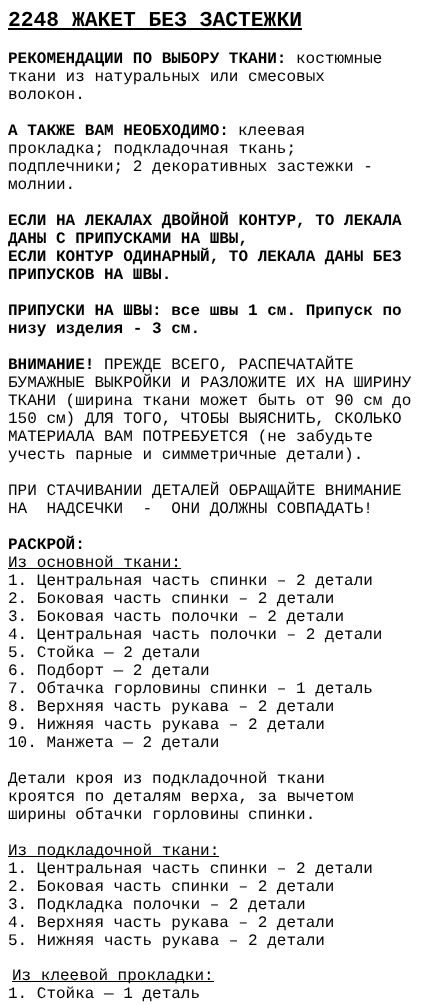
(async () => {
  const canvas = document.querySelector("canvas");
  canvas.width = 421;
  canvas.height = 1005;
  const ctx = canvas.getContext("2d");
  ctx.miterLimit = 4;
  ctx.fontKerning = "normal";

  ctx.fillStyle = "#ffffff";
  ctx.fillRect(0, 0, 421, 1005);
  for (const [x, y, w, h, color] of [
    [8, 28, 294, 2, "#000000"],
    [8, 568, 173, 1, "#000000"],
    [8, 856, 211, 1, "#000000"],
    [12, 981, 202, 1, "#000000"],
  ]) {
    ctx.fillStyle = color;
    ctx.fillRect(x, y, w, h);
  }
  ctx.font = "bold 21.3px Liberation Mono";
  ctx.fillText("2248 ЖАКЕТ БЕЗ ЗАСТЕЖКИ", 8, 26);
  ctx.font = "bold 16px Liberation Mono";
  ctx.fillText("РЕКОМЕНДАЦИИ ПО ВЫБОРУ ТКАНИ:", 8, 63);
  ctx.font = "16px Liberation Mono";
  for (const [text, x, y] of [
    ["костюмные", 296, 63],
    ["ткани из натуральных или смесовых", 8, 81],
    ["волокон.", 8, 99],
  ]) {
    ctx.fillText(text, x, y);
  }
  ctx.font = "bold 16px Liberation Mono";
  ctx.fillText("А ТАКЖЕ ВАМ НЕОБХОДИМО:", 8, 135);
  ctx.font = "16px Liberation Mono";
  for (const [text, x, y] of [
    ["клеевая", 238, 135],
    ["прокладка; подкладочная ткань;", 8, 153],
    ["подплечники; 2 декоративных застежки -", 8, 171],
    ["молнии.", 8, 189],
  ]) {
    ctx.fillText(text, x, y);
  }
  ctx.font = "bold 16px Liberation Mono";
  for (const [text, x, y] of [
    ["ЕСЛИ НА ЛЕКАЛАХ ДВОЙНОЙ КОНТУР, ТО ЛЕКАЛА", 8, 225],
    ["ДАНЫ С ПРИПУСКАМИ НА ШВЫ,", 8, 243],
    ["ЕСЛИ КОНТУР ОДИНАРНЫЙ, ТО ЛЕКАЛА ДАНЫ БЕЗ", 8, 261],
    ["ПРИПУСКОВ НА ШВЫ.", 8, 279],
    ["ПРИПУСКИ НА ШВЫ: все швы 1 см. Припуск по", 8, 315],
    ["низу изделия - 3 см.", 8, 333],
    ["ВНИМАНИЕ!", 8, 369],
  ]) {
    ctx.fillText(text, x, y);
  }
  ctx.font = "16px Liberation Mono";
  for (const [text, x, y] of [
    ["ПРЕЖДЕ ВСЕГО, РАСПЕЧАТАЙТЕ", 104, 369],
    ["БУМАЖНЫЕ ВЫКРОЙКИ И РАЗЛОЖИТЕ ИХ НА ШИРИНУ", 8, 387],
    ["ТКАНИ (ширина ткани может быть от 90 см до", 8, 405],
    ["150 см) ДЛЯ ТОГО, ЧТОБЫ ВЫЯСНИТЬ, СКОЛЬКО", 8, 423],
    ["МАТЕРИАЛА ВАМ ПОТРЕБУЕТСЯ (не забудьте", 8, 441],
    ["учесть парные и симметричные детали).", 8, 459],
    ["ПРИ СТАЧИВАНИИ ДЕТАЛЕЙ ОБРАЩАЙТЕ ВНИМАНИЕ", 8, 495],
    ["НА  НАДСЕЧКИ  -  ОНИ ДОЛЖНЫ СОВПАДАТЬ!", 8, 513],
  ]) {
    ctx.fillText(text, x, y);
  }
  ctx.font = "bold 16px Liberation Mono";
  ctx.fillText("РАСКРОЙ:", 8, 549);
  ctx.font = "16px Liberation Mono";
  for (const [text, x, y] of [
    ["Из основной ткани:", 8, 567],
    ["1. Центральная часть спинки – 2 детали", 8, 585],
    ["2. Боковая часть спинки – 2 детали", 8, 603],
    ["3. Боковая часть полочки – 2 детали", 8, 621],
    ["4. Центральная часть полочки – 2 детали", 8, 639],
    ["5. Стойка — 2 детали", 8, 657],
    ["6. Подборт — 2 детали", 8, 675],
    ["7. Обтачка горловины спинки – 1 деталь", 8, 693],
    ["8. Верхняя часть рукава – 2 детали", 8, 711],
    ["9. Нижняя часть рукава – 2 детали", 8, 729],
    ["10. Манжета — 2 детали", 8, 747],
    ["Детали кроя из подкладочной ткани", 8, 783],
    ["кроятся по деталям верха, за вычетом", 8, 801],
    ["ширины обтачки горловины спинки.", 8, 819],
    ["Из подкладочной ткани:", 8, 855],
    ["1. Центральная часть спинки – 2 детали", 8, 873],
    ["2. Боковая часть спинки – 2 детали", 8, 891],
    ["3. Подкладка полочки – 2 детали", 8, 909],
    ["4. Верхняя часть рукава – 2 детали", 8, 927],
    ["5. Нижняя часть рукава – 2 детали", 8, 945],
    ["Из клеевой прокладки:", 12, 980],
    ["1. Стойка — 1 деталь", 8, 998],
  ]) {
    ctx.fillText(text, x, y);
  }
})();
